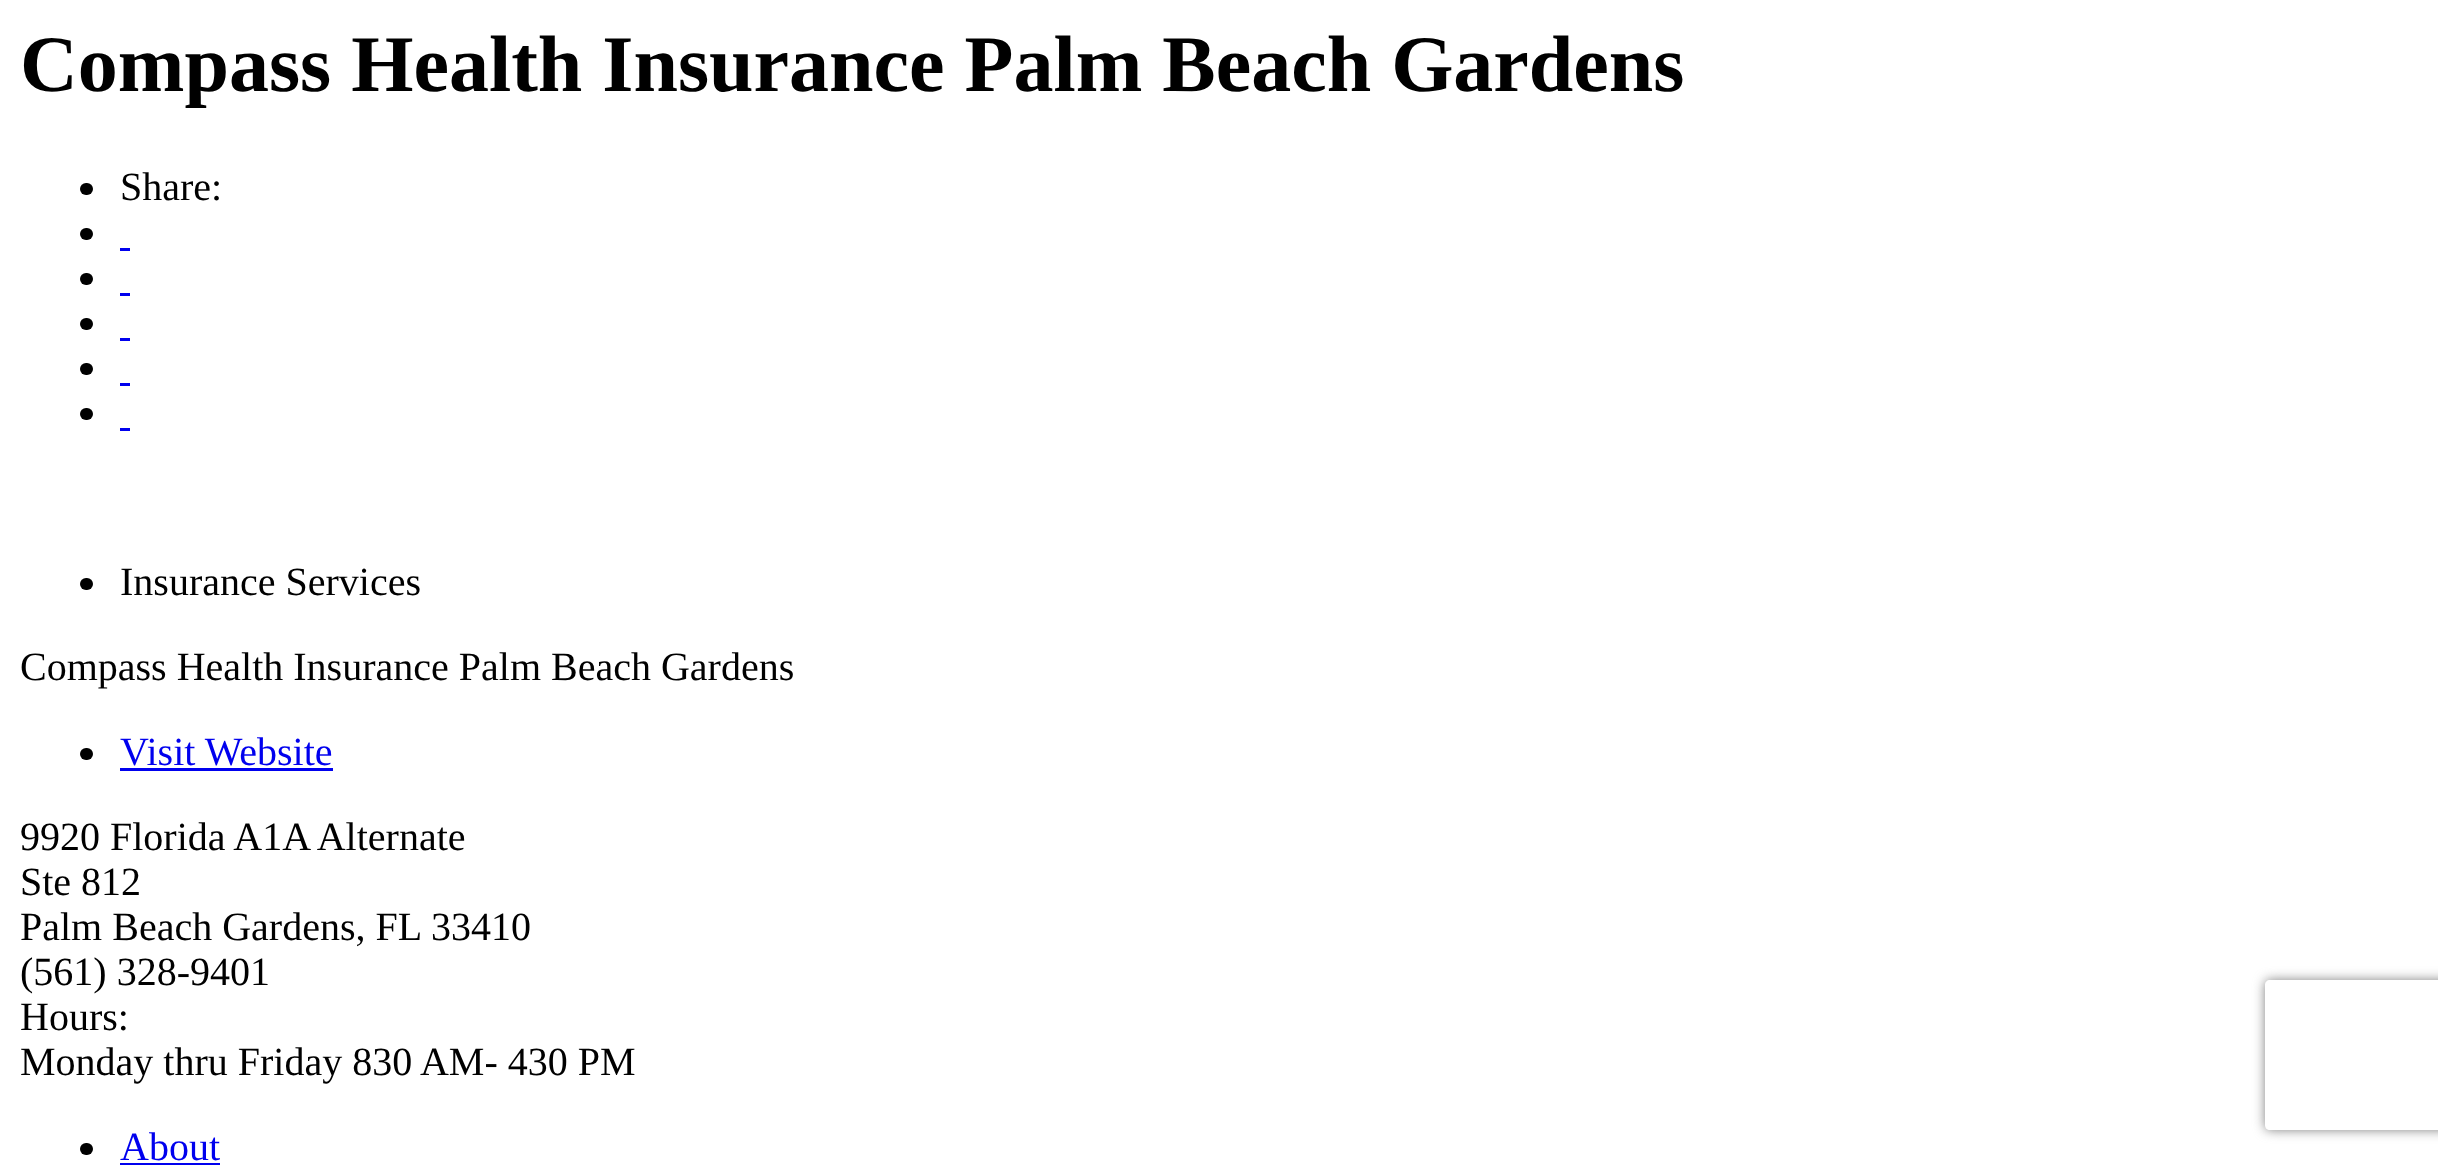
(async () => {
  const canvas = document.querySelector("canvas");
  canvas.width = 2438;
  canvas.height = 1165;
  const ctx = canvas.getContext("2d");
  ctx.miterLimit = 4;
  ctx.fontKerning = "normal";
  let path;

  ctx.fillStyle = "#ffffff";
  ctx.fillRect(0, 0, 2438, 1165);
  ctx.fillStyle = "#000000";
  ctx.beginPath();
  ctx.roundRect(80, 183, 13, 12, 6);
  ctx.fill();
  ctx.beginPath();
  ctx.roundRect(80, 228, 13, 12, 6);
  ctx.fill();
  ctx.fillStyle = "#0000ee";
  ctx.fillRect(120, 248, 10, 3);
  ctx.fillStyle = "#000000";
  ctx.beginPath();
  ctx.roundRect(80, 273, 13, 12, 6);
  ctx.fill();
  ctx.fillStyle = "#0000ee";
  ctx.fillRect(120, 293, 10, 3);
  ctx.fillStyle = "#000000";
  ctx.beginPath();
  ctx.roundRect(80, 318, 13, 12, 6);
  ctx.fill();
  ctx.fillStyle = "#0000ee";
  ctx.fillRect(120, 338, 10, 3);
  ctx.fillStyle = "#000000";
  ctx.beginPath();
  ctx.roundRect(80, 363, 13, 12, 6);
  ctx.fill();
  ctx.fillStyle = "#0000ee";
  ctx.fillRect(120, 383, 10, 3);
  ctx.fillStyle = "#000000";
  ctx.beginPath();
  ctx.roundRect(80, 408, 13, 12, 6);
  ctx.fill();
  ctx.fillStyle = "#0000ee";
  ctx.fillRect(120, 428, 10, 3);
  ctx.fillStyle = "#000000";
  ctx.beginPath();
  ctx.roundRect(80, 578, 13, 12, 6);
  ctx.fill();
  ctx.beginPath();
  ctx.roundRect(80, 748, 13, 12, 6);
  ctx.fill();
  ctx.fillStyle = "#0000ee";
  ctx.fillRect(120, 768, 213, 3);
  ctx.fillStyle = "#000000";
  ctx.beginPath();
  ctx.roundRect(80, 1143, 13, 12, 6);
  ctx.fill();
  ctx.fillStyle = "#0000ee";
  ctx.fillRect(120, 1163, 100, 2);
  ctx.save();
  path = new Path2D("M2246 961H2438V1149H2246ZM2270 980H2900C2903 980 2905 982 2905 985V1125C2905 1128 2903 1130 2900 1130H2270C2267 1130 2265 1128 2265 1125V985C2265 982 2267 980 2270 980Z");
  ctx.clip(path, "evenodd");
  ctx.fillStyle = "#808080";
  ctx.filter = "blur(6px)";
  ctx.beginPath();
  ctx.roundRect(2265, 980, 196, 150, 5);
  ctx.fill();
  ctx.filter = "none";
  ctx.restore();
  ctx.font = "bold 80px Liberation Serif";
  ctx.fillStyle = "#000000";
  ctx.fillText("Compass Health Insurance Palm Beach Gardens", 20, 91);
  ctx.font = "40px Liberation Serif";
  for (const [text, x, y] of [
    ["Share:", 120, 200],
    ["Insurance Services", 120, 595],
    ["Compass Health Insurance Palm Beach Gardens", 20, 680],
  ]) {
    ctx.fillText(text, x, y);
  }
  ctx.fillStyle = "#0000ee";
  ctx.fillText("Visit Website", 120, 765);
  ctx.fillStyle = "#000000";
  for (const [text, x, y] of [
    ["9920 Florida A1A Alternate", 20, 850],
    ["Ste 812", 20, 895],
    ["Palm Beach Gardens, FL", 20, 940],
    ["33410", 431, 940],
    ["(561) 328-9401", 20, 985],
    ["Hours:", 20, 1030],
    ["Monday thru Friday 830 AM- 430 PM", 20, 1075],
  ]) {
    ctx.fillText(text, x, y);
  }
  ctx.fillStyle = "#0000ee";
  ctx.fillText("About", 120, 1160);
})();
